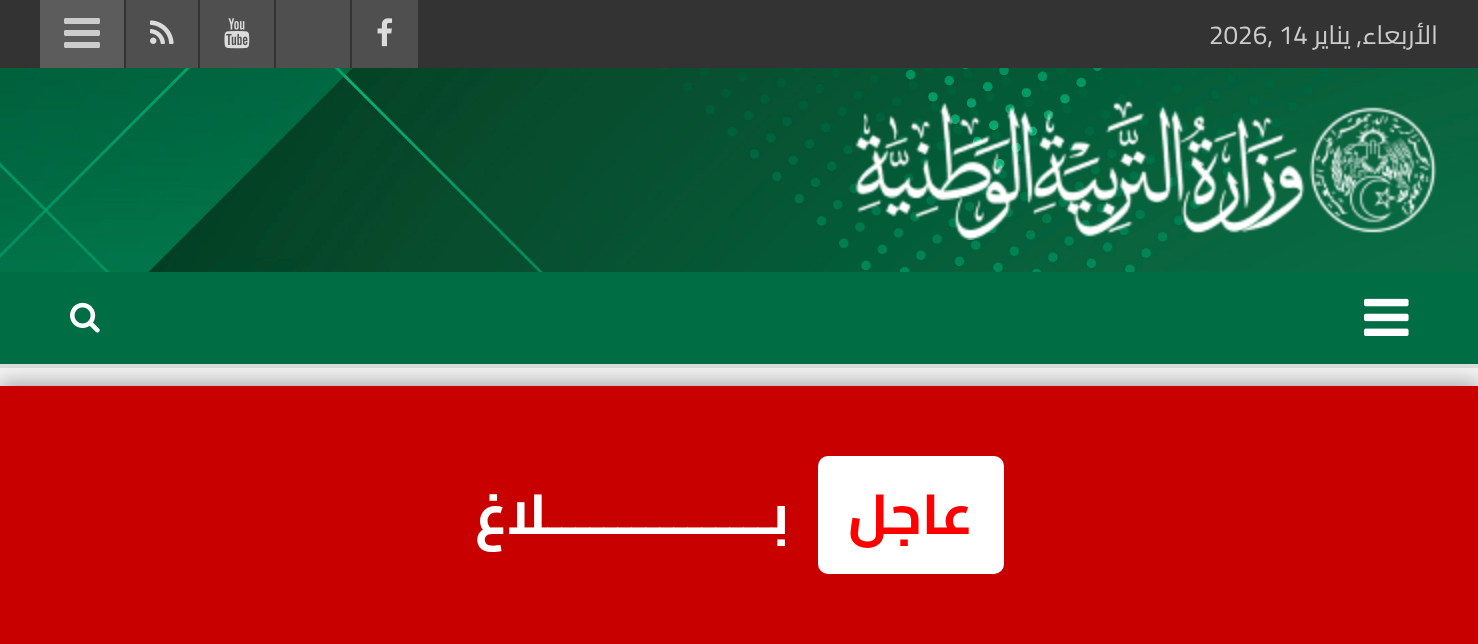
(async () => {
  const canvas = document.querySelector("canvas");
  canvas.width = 1478;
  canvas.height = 644;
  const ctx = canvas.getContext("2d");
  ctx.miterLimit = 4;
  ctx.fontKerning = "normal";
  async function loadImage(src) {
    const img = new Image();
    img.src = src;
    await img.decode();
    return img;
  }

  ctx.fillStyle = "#f4f4f4";
  ctx.fillRect(0, 0, 1478, 644);
  ctx.fillStyle = "#333333";
  ctx.fillRect(0, 0, 1478, 68);
  ctx.fillStyle = "#4f4f4f";
  ctx.fillRect(352, 0, 66, 68);
  ctx.drawImage(await loadImage("img/1.png"), 377, 18, 16, 29);
  ctx.fillRect(276, 0, 74, 68);
  ctx.fillRect(200, 0, 74, 68);
  ctx.drawImage(await loadImage("img/2.png"), 224, 18, 26, 31);
  ctx.fillRect(126, 0, 72, 68);
  ctx.drawImage(await loadImage("img/3.png"), 150, 20, 24, 24);
  ctx.fillStyle = "#5c5c5c";
  ctx.fillRect(40, 0, 84, 68);
  ctx.drawImage(await loadImage("img/4.png"), 64, 18, 36, 30);
  ctx.drawImage(await loadImage("img/5.png"), 0, 68, 1478, 204);
  ctx.drawImage(await loadImage("img/6.png"), 855, 100, 582, 140);
  ctx.fillStyle = "#016d45";
  ctx.fillRect(0, 272, 1478, 92);
  ctx.drawImage(await loadImage("img/7.png"), 1364, 298, 45, 38);
  ctx.drawImage(await loadImage("img/8.png"), 70, 302, 30, 31);
  ctx.fillStyle = "#dddddd";
  ctx.fillRect(0, 364, 1478, 4);
  ctx.fillStyle = "rgba(0, 0, 0, 0.3)";
  ctx.filter = "blur(10px)";
  ctx.beginPath();
  ctx.rect(0, 382, 1478, 258);
  ctx.fill();
  ctx.filter = "none";
  ctx.fillStyle = "#c80000";
  ctx.fillRect(0, 386, 1478, 258);
  ctx.fillStyle = "#ffffff";
  ctx.beginPath();
  ctx.roundRect(818, 456, 186, 118, 10);
  ctx.fill();
  ctx.direction = "rtl";
  ctx.font = "26px Cairo";
  ctx.fillStyle = "#cccccc";
  ctx.fillText("الأربعاء, يناير", 1438, 44);
  ctx.direction = "ltr";
  ctx.fillText("2026, 14", 1209, 44);
  ctx.direction = "rtl";
  ctx.font = "bold 56px Cairo";
  ctx.fillStyle = "#ff0000";
  ctx.fillText("عاجل", 973, 534);
  ctx.fillStyle = "#ffffff";
  ctx.fillText("بــــــــــــــــلاغ", 789, 534);
})();
